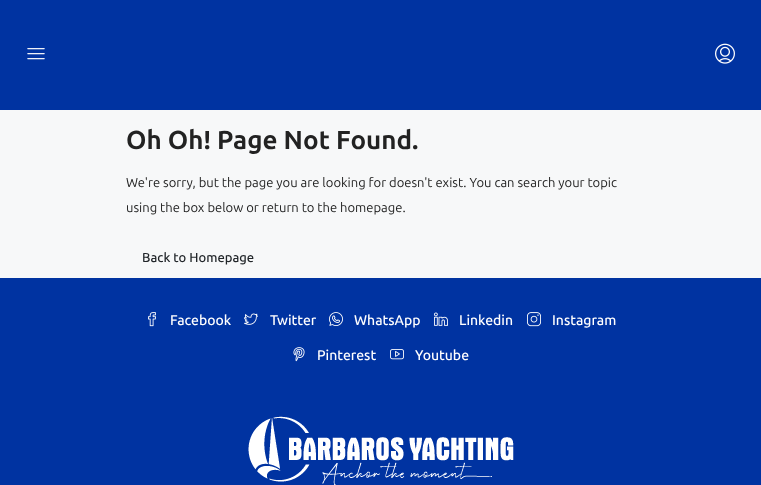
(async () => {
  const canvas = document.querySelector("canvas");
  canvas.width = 761;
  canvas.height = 485;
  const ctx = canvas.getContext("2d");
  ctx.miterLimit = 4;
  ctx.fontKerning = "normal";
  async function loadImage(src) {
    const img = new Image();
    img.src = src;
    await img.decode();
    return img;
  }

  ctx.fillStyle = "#f7f8f9";
  ctx.fillRect(0, 0, 761, 485);
  ctx.fillStyle = "#0033a1";
  ctx.fillRect(0, 0, 761, 110);
  ctx.drawImage(await loadImage("img/1.png"), 27, 48, 18, 12);
  ctx.drawImage(await loadImage("img/2.png"), 715, 43, 20, 21);
  ctx.fillRect(0, 278, 761, 207);
  ctx.drawImage(await loadImage("img/3.png"), 148, 312, 8, 15);
  ctx.drawImage(await loadImage("img/4.png"), 244, 313, 14, 12);
  ctx.drawImage(await loadImage("img/5.png"), 329, 312, 14, 14);
  ctx.drawImage(await loadImage("img/6.png"), 434, 312, 14, 14);
  ctx.drawImage(await loadImage("img/7.png"), 527, 312, 14, 15);
  ctx.drawImage(await loadImage("img/8.png"), 293, 347, 12, 15);
  ctx.drawImage(await loadImage("img/9.png"), 390, 349, 14, 11);
  ctx.drawImage(await loadImage("img/10.png"), 248, 416, 266, 69);
  ctx.font = "bold 26px Ubuntu";
  ctx.fillStyle = "#222222";
  ctx.fillText("Oh Oh! Page Not Found.", 126, 149);
  ctx.font = "13px Ubuntu";
  ctx.fillText("We're sorry, but the page you are looking for doesn't exist. You can search your topic", 126, 187);
  ctx.fillText("using the box below or return to the homepage.", 126, 212);
  ctx.font = "500 13px Ubuntu";
  ctx.fillStyle = "#212529";
  ctx.fillText("Back to Homepage", 142, 262);
  ctx.font = "500 14px Ubuntu";
  ctx.fillStyle = "#ffffff";
  for (const [text, x, y] of [
    ["Facebook", 170, 325],
    ["Twitter", 270, 325],
    ["WhatsApp", 354, 325],
    ["Linkedin", 459, 325],
    ["Instagram", 552, 325],
    ["Pinterest", 317, 360],
    ["Youtube", 415, 360],
  ]) {
    ctx.fillText(text, x, y);
  }
})();
